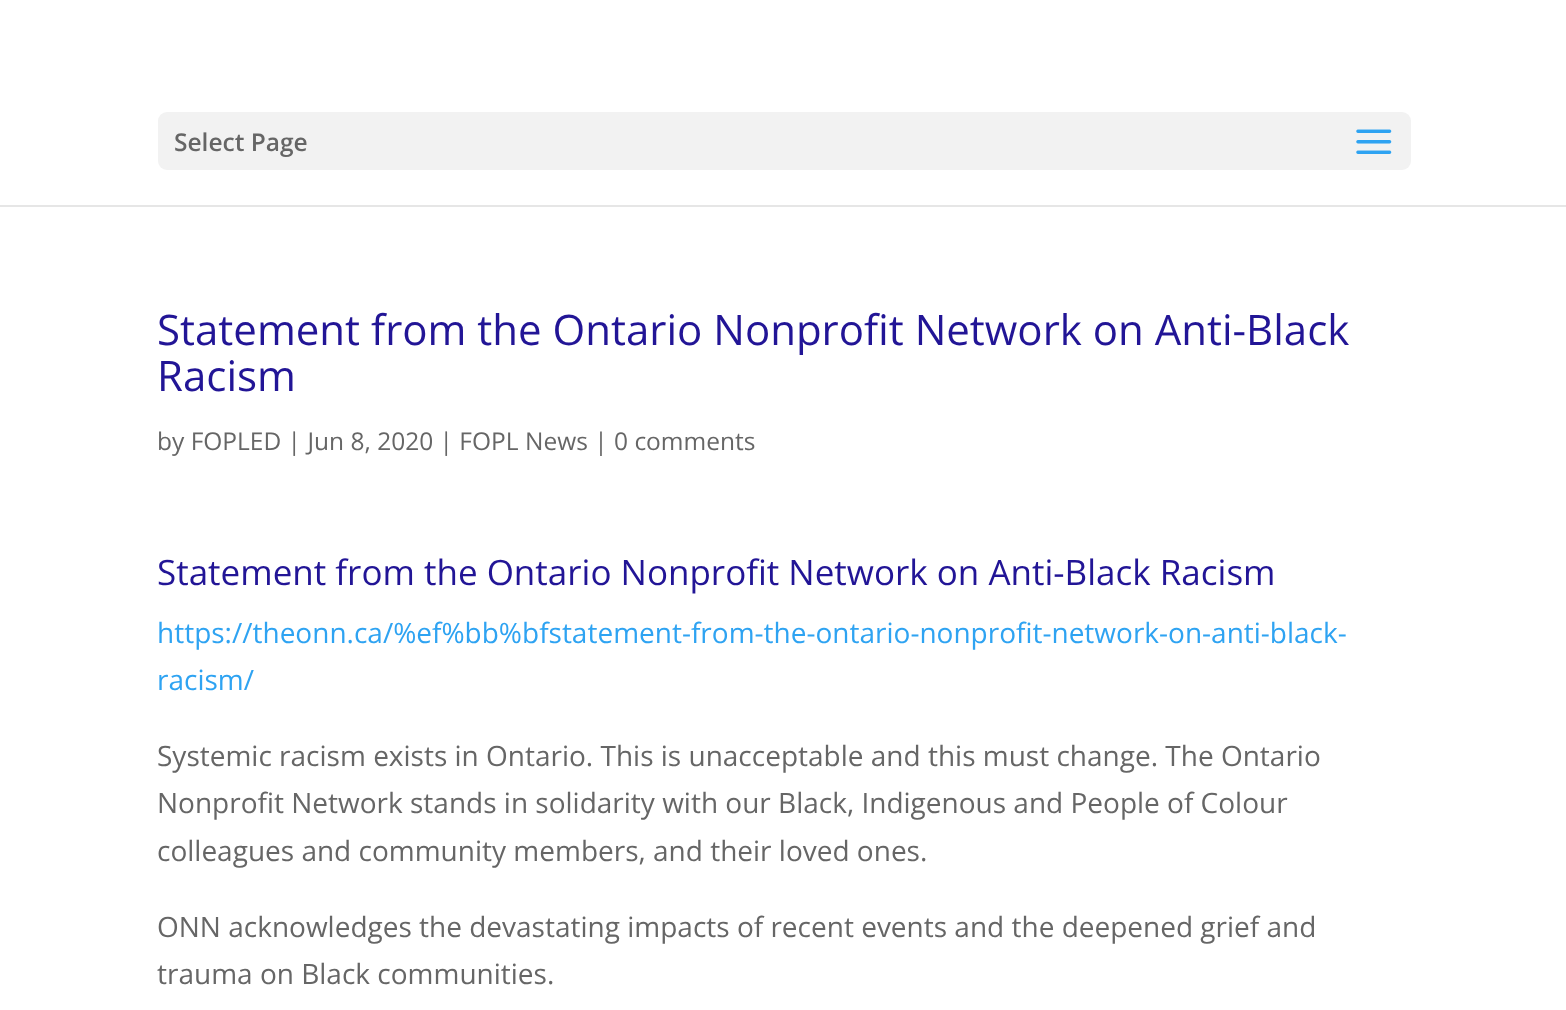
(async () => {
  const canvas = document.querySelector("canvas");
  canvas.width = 1566;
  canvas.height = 1010;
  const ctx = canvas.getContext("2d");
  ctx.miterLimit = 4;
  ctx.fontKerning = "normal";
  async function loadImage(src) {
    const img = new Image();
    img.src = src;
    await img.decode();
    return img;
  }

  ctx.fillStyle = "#ffffff";
  ctx.fillRect(0, 0, 1566, 1010);
  ctx.fillStyle = "#e6e6e6";
  ctx.fillRect(0, 205, 1566, 2);
  ctx.fillStyle = "#f2f2f2";
  ctx.beginPath();
  ctx.roundRect(158, 112, 1253, 58, 9);
  ctx.fill();
  ctx.drawImage(await loadImage("img/1.png"), 1356, 129, 36, 25);
  ctx.font = "600 24.5px Open Sans";
  ctx.fillStyle = "#666666";
  ctx.fillText("Select Page", 174, 151);
  ctx.font = "42px Open Sans";
  ctx.fillStyle = "#221596";
  ctx.fillText("Statement from the Ontario Nonprofit Network on Anti-Black", 157, 345);
  ctx.fillText("Racism", 157, 391);
  ctx.font = "24.5px Open Sans";
  ctx.fillStyle = "#666666";
  ctx.fillText("by FOPLED | Jun 8, 2020 | FOPL News | 0 comments", 157, 450);
  ctx.font = "35px Open Sans";
  ctx.fillStyle = "#221596";
  ctx.fillText("Statement from the Ontario Nonprofit Network on Anti-Black Racism", 157, 585);
  ctx.font = "28px Open Sans";
  ctx.fillStyle = "#2ea3f2";
  ctx.fillText("https://theonn.ca/%ef%bb%bfstatement-from-the-ontario-nonprofit-network-on-anti-black-", 157, 643);
  ctx.fillText("racism/", 157, 690);
  ctx.fillStyle = "#666666";
  for (const [text, x, y] of [
    ["Systemic racism exists in Ontario. This is unacceptable and this must change. The Ontario", 157, 766],
    ["Nonprofit Network stands in solidarity with our Black, Indigenous and People of Colour", 157, 813],
    ["colleagues and community members, and their loved ones.", 157, 861],
    ["ONN acknowledges the devastating impacts of recent events and the deepened grief and", 157, 937],
    ["trauma on Black communities.", 157, 984],
  ]) {
    ctx.fillText(text, x, y);
  }
})();
